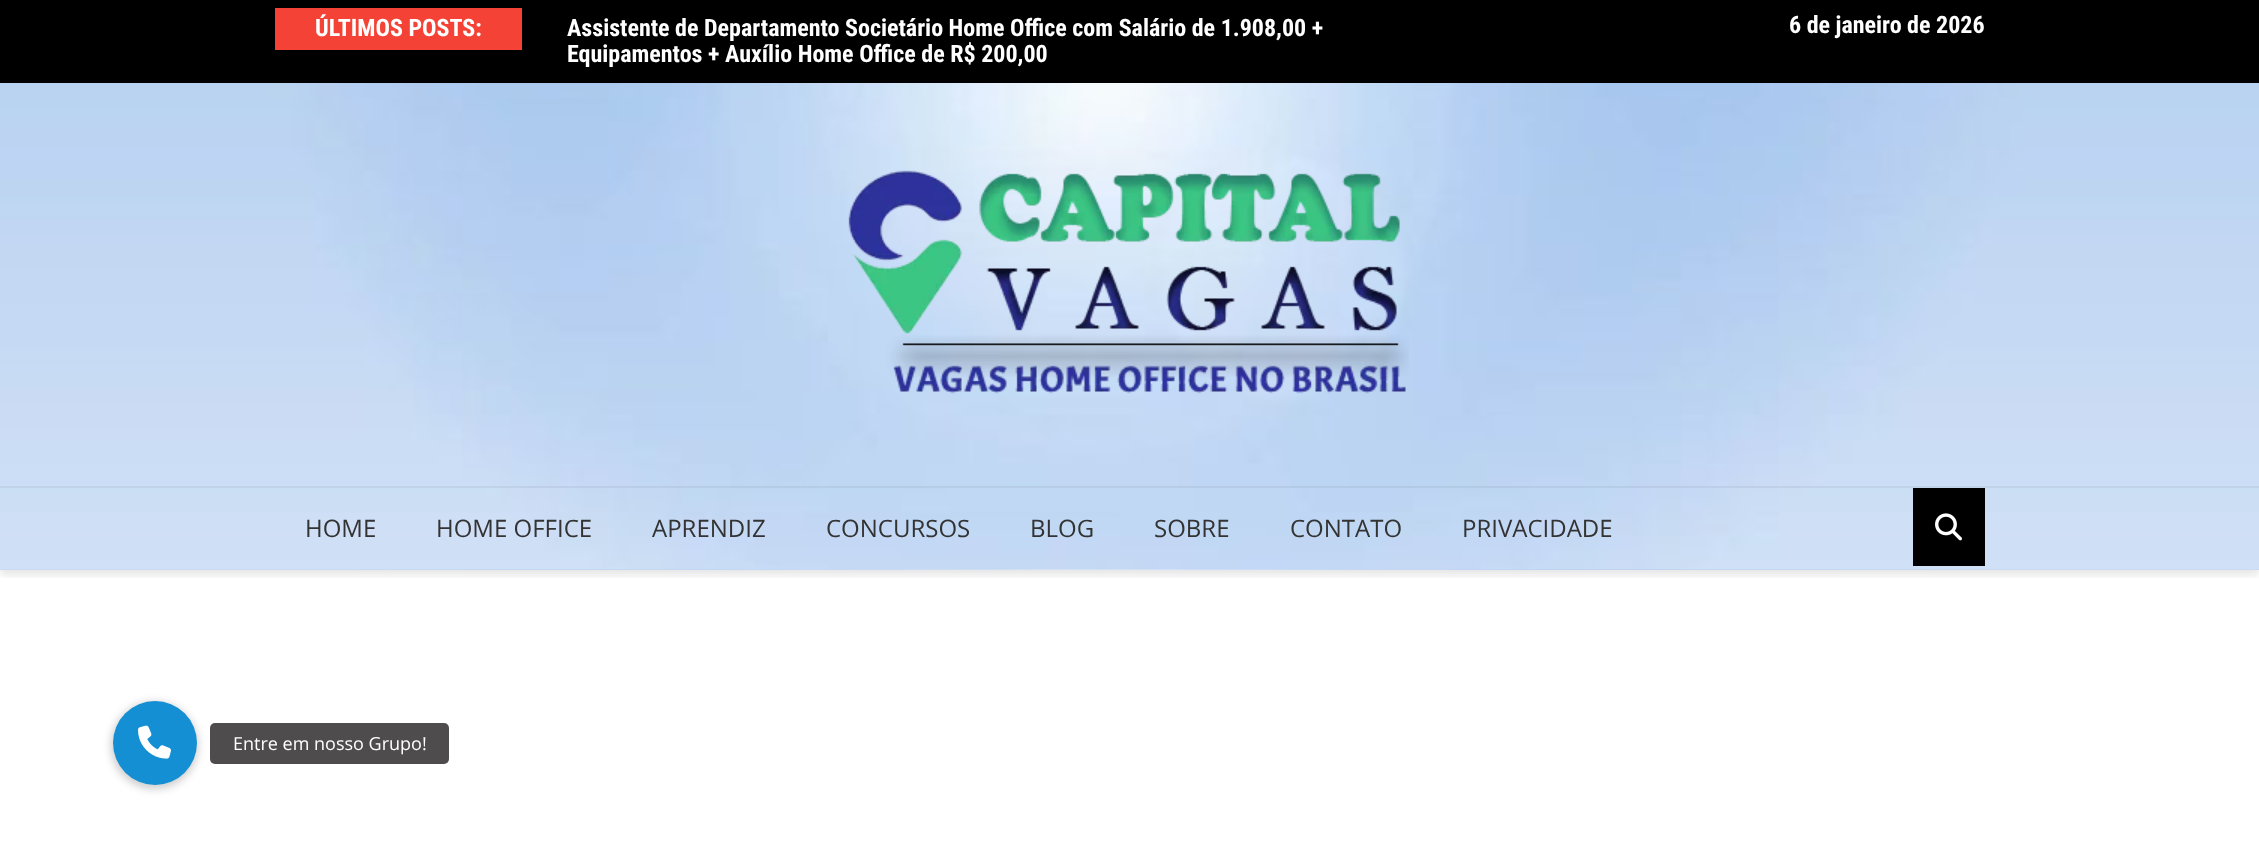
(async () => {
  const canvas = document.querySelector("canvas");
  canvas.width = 2259;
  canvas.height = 853;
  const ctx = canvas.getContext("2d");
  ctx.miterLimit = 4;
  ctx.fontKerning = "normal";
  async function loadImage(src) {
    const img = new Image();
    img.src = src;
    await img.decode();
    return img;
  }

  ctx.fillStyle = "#ffffff";
  ctx.fillRect(0, 0, 2259, 853);
  ctx.drawImage(await loadImage("img/1.png"), 0, 83, 2259, 487);
  ctx.fillStyle = "#000000";
  ctx.fillRect(0, 0, 2259, 83);
  ctx.fillStyle = "#f44336";
  ctx.fillRect(275, 8, 247, 42);
  ctx.drawImage(await loadImage("img/2.png"), 848, 170, 561, 224);
  ctx.save();
  ctx.beginPath();
  ctx.rect(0, 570, 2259, 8);
  ctx.clip();
  ctx.fillStyle = "rgba(0, 0, 0, 0.1)";
  ctx.filter = "blur(4px)";
  ctx.beginPath();
  ctx.rect(0, 491, 2259, 84);
  ctx.fill();
  ctx.filter = "none";
  ctx.restore();
  ctx.fillStyle = "rgba(0, 0, 0, 0.05)";
  ctx.fillRect(0, 486, 2259, 2);
  ctx.fillStyle = "#000000";
  ctx.fillRect(1913, 488, 72, 78);
  ctx.drawImage(await loadImage("img/3.png"), 1935, 513, 27, 28);
  ctx.fillStyle = "rgba(0, 0, 0, 0.2)";
  ctx.filter = "blur(4.5px)";
  ctx.beginPath();
  ctx.roundRect(111, 702, 87, 87, 43.5);
  ctx.fill();
  ctx.filter = "none";
  ctx.fillStyle = "#148fd4";
  ctx.beginPath();
  ctx.arc(155, 743, 42, 0, Math.PI * 2);
  ctx.fill();
  ctx.drawImage(await loadImage("img/4.png"), 138, 725, 33, 34);
  ctx.fillStyle = "#4e4c4c";
  ctx.beginPath();
  ctx.roundRect(210, 723, 239, 41, 5);
  ctx.fill();
  ctx.font = "bold 24px Roboto Condensed";
  ctx.fillStyle = "#ffffff";
  for (const [text, x, y] of [
    ["ÚLTIMOS POSTS:", 315, 36],
    ["Assistente de Departamento Societário Home Office com Salário de 1.908,00 +", 567, 36],
    ["Equipamentos + Auxílio Home Office de R$ 200,00", 567, 62],
    ["6 de janeiro de 2026", 1789, 33],
  ]) {
    ctx.fillText(text, x, y);
  }
  ctx.font = "24px Open Sans";
  ctx.fillStyle = "#333333";
  for (const [text, x, y] of [
    ["HOME", 305, 537],
    ["HOME OFFICE", 436, 537],
    ["APRENDIZ", 652, 537],
    ["CONCURSOS", 826, 537],
    ["BLOG", 1030, 537],
    ["SOBRE", 1154, 537],
    ["CONTATO", 1290, 537],
    ["PRIVACIDADE", 1462, 537],
  ]) {
    ctx.fillText(text, x, y);
  }
  ctx.font = "18px Open Sans";
  ctx.fillStyle = "#ffffff";
  ctx.fillText("Entre em nosso Grupo!", 233, 750);
})();
